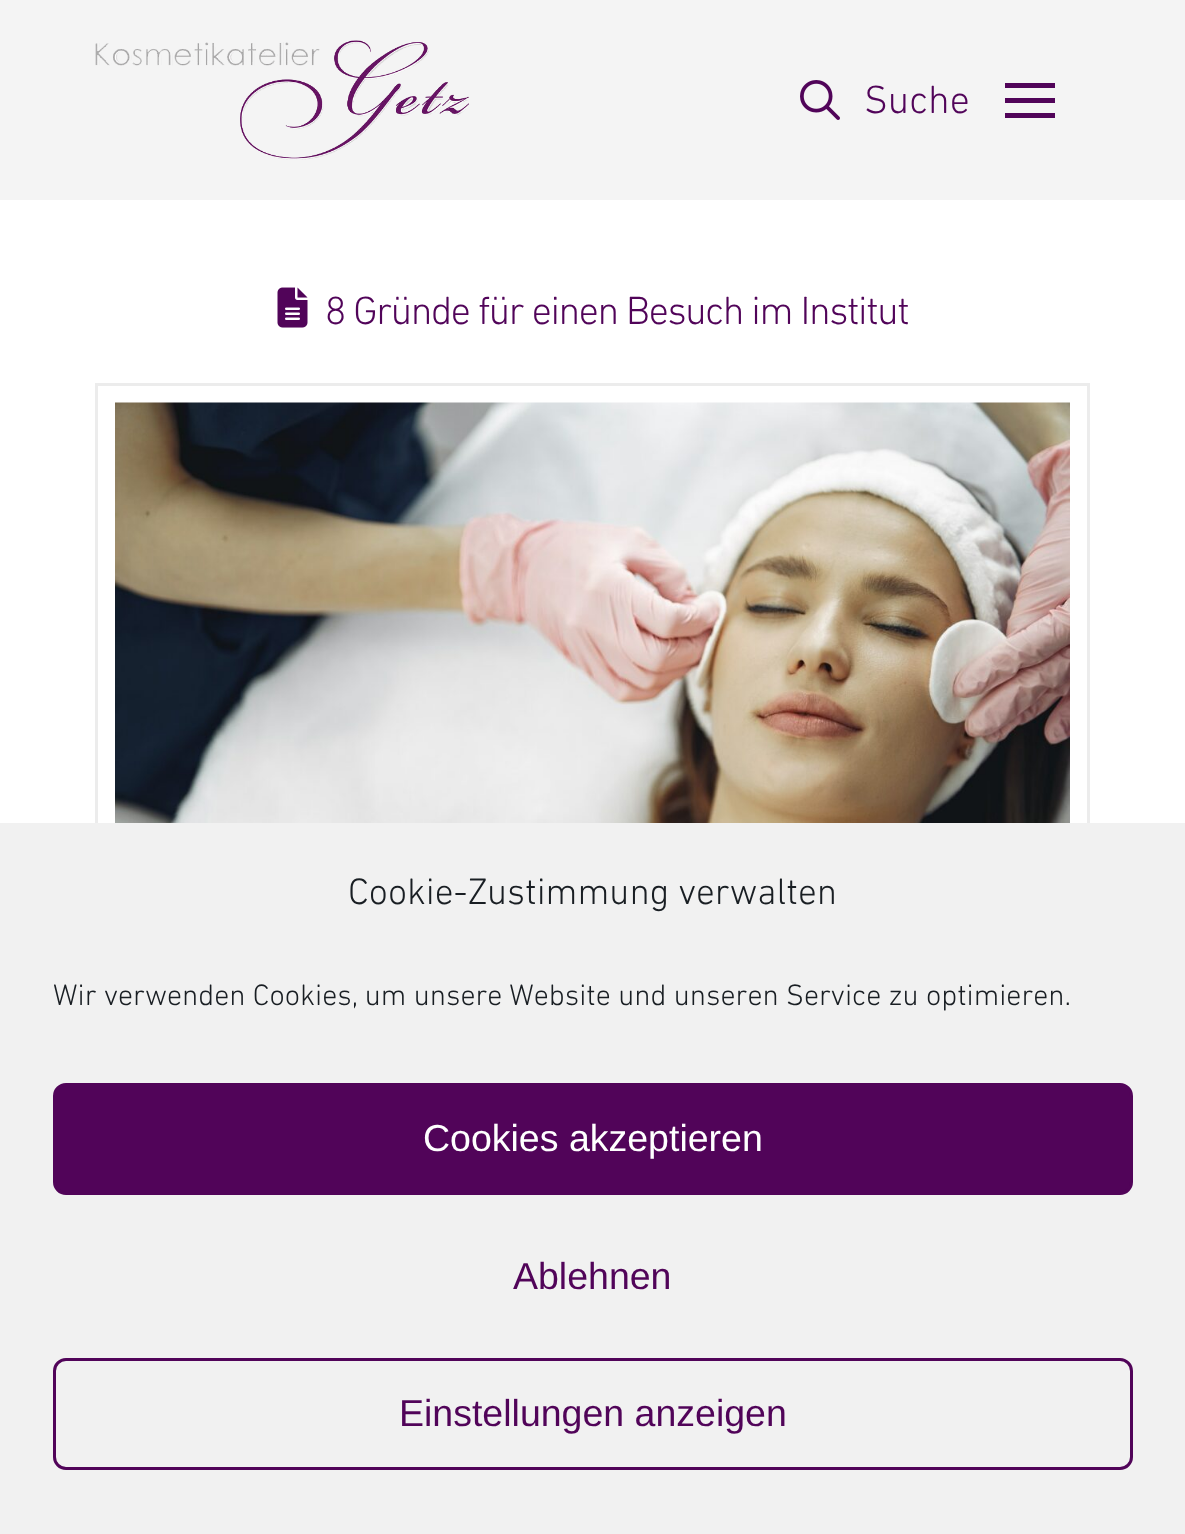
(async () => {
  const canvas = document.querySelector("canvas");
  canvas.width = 1185;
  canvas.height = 1534;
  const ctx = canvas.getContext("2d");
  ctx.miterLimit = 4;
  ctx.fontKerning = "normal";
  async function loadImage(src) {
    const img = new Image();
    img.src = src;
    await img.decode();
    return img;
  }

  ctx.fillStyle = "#ffffff";
  ctx.fillRect(0, 0, 1185, 1534);
  ctx.fillStyle = "#f4f4f4";
  ctx.fillRect(0, 0, 1185, 200);
  ctx.drawImage(await loadImage("img/1.png"), 95, 40, 374, 120);
  ctx.drawImage(await loadImage("img/2.png"), 800, 80, 40, 40);
  for (const [x, y, w, h, color] of [
    [1005, 83, 50, 5, "#510459"],
    [1005, 98, 50, 5, "#510459"],
    [1005, 113, 50, 5, "#510459"],
  ]) {
    ctx.fillStyle = color;
    ctx.fillRect(x, y, w, h);
  }
  ctx.drawImage(await loadImage("img/3.png"), 277, 287, 31, 41);
  ctx.strokeStyle = "#ececec";
  ctx.lineWidth = 3;
  ctx.strokeRect(96.5, 384.5, 992, 674);
  ctx.drawImage(await loadImage("img/4.png"), 115, 402, 955, 421);
  ctx.fillStyle = "#f1f1f1";
  ctx.fillRect(0, 823, 1185, 711);
  ctx.fillStyle = "#510459";
  ctx.beginPath();
  ctx.roundRect(54.5, 1084.5, 1077, 109, 11.5);
  ctx.fill();
  ctx.strokeStyle = "#510459";
  ctx.stroke();
  ctx.beginPath();
  ctx.roundRect(54.5, 1359.5, 1077, 109, 11.5);
  ctx.stroke();
  ctx.font = "300 40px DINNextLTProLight";
  ctx.fillText("Suche", 864, 113);
  ctx.letterSpacing = "-1.4px";
  ctx.fillText("8 Gründe für einen Besuch im Institut", 325, 324);
  ctx.letterSpacing = "0px";
  ctx.font = "300 37.5px DINNextLTProLight";
  ctx.fillStyle = "#191e23";
  ctx.fillText("Cookie-Zustimmung verwalten", 348, 904);
  ctx.font = "300 30px DINNextLTProLight";
  ctx.fillText("Wir verwenden Cookies, um unsere Website und unseren Service zu optimieren.", 53, 1005);
  ctx.font = "37.5px Liberation Sans";
  ctx.fillStyle = "#ffffff";
  ctx.fillText("Cookies akzeptieren", 423, 1151);
  ctx.fillStyle = "#510459";
  ctx.fillText("Ablehnen", 513, 1289);
  ctx.fillText("Einstellungen anzeigen", 399, 1426);
})();
